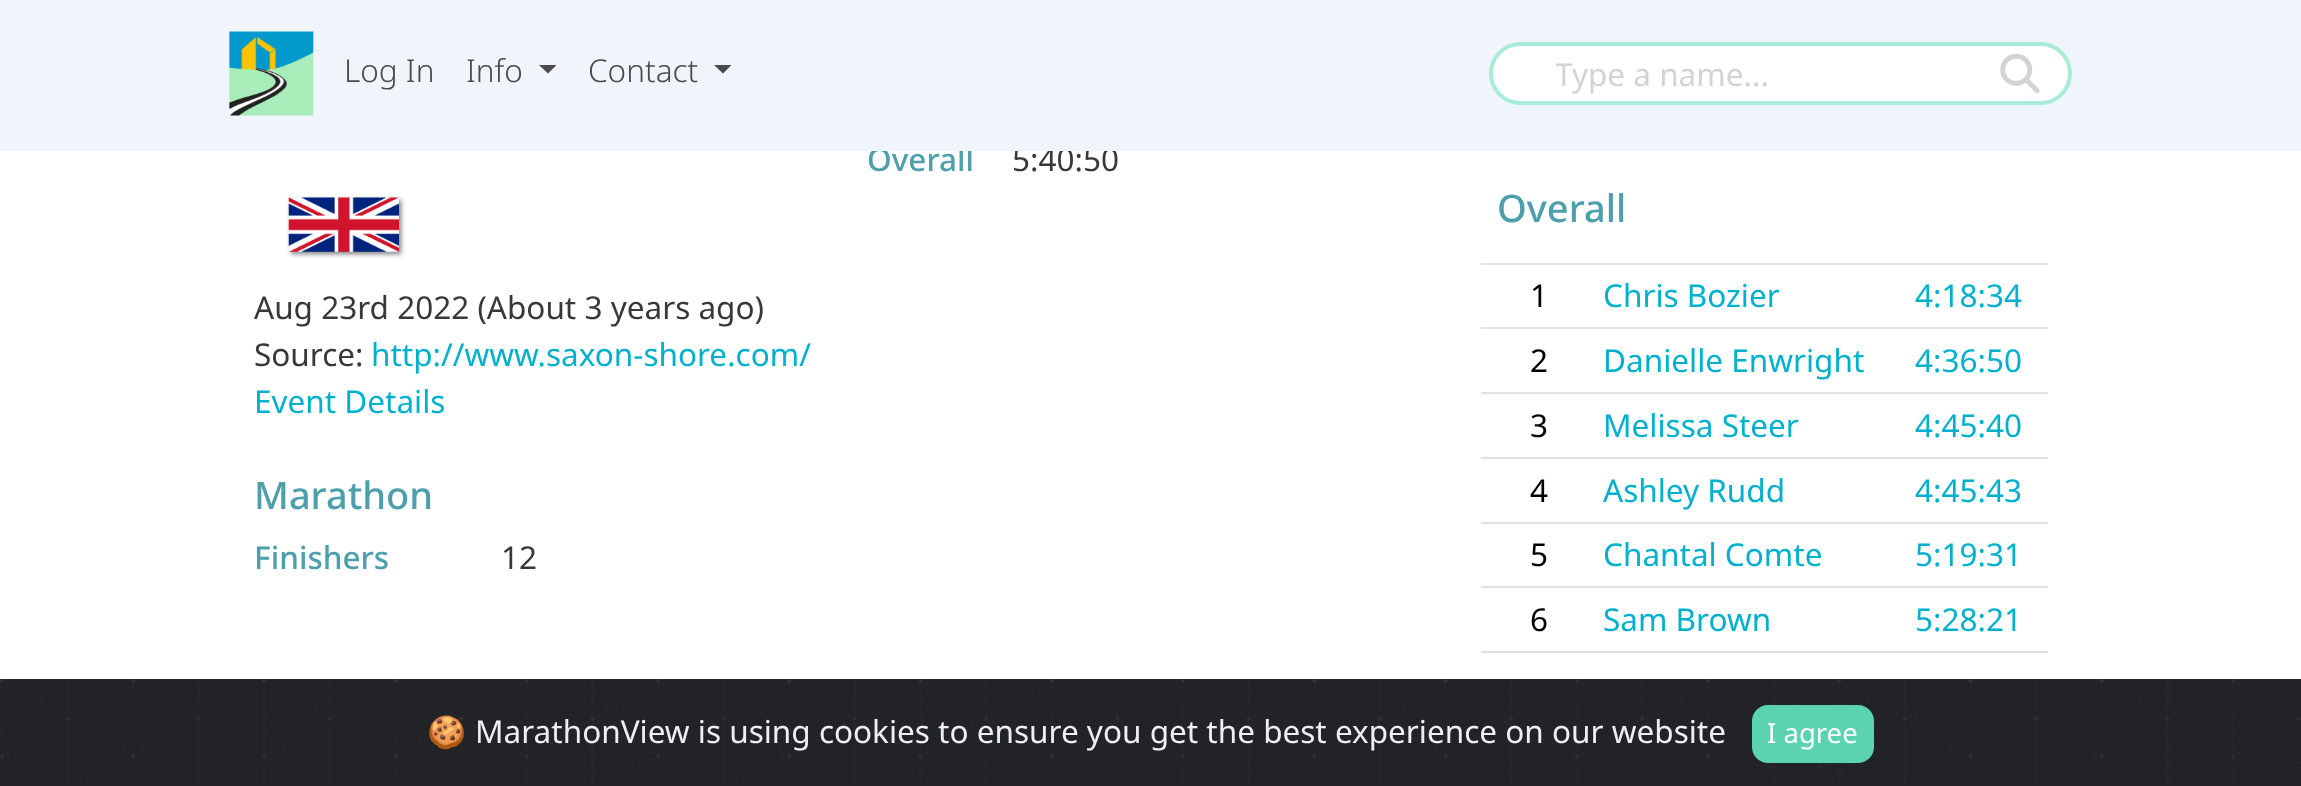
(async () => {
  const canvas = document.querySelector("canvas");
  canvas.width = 2301;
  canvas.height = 786;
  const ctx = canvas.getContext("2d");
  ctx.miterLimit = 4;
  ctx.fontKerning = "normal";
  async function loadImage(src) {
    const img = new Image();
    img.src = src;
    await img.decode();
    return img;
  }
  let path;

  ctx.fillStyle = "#ffffff";
  ctx.fillRect(0, 0, 2301, 786);
  ctx.fillStyle = "#808080";
  ctx.filter = "blur(2.5px)";
  ctx.beginPath();
  ctx.rect(291, 200, 110, 54);
  ctx.fill();
  ctx.filter = "none";
  ctx.drawImage(await loadImage("img/3.png"), 288, 197, 111, 55);
  for (const [x, y, w, h, color] of [
    [1481, 263, 567, 2, "#dee2e6"],
    [1481, 327, 567, 2, "#dee2e6"],
    [1481, 392, 567, 2, "#dee2e6"],
    [1481, 457, 567, 2, "#dee2e6"],
    [1481, 522, 567, 2, "#dee2e6"],
    [1481, 586, 567, 2, "#dee2e6"],
    [1481, 651, 567, 2, "#dee2e6"],
    [0, 785, 2301, 1, "#212327"],
  ]) {
    ctx.fillStyle = color;
    ctx.fillRect(x, y, w, h);
  }
  ctx.drawImage(await loadImage("img/4.png"), 0, 679, 2301, 106);
  ctx.fillStyle = "#5bd3b0";
  ctx.beginPath();
  ctx.roundRect(1752, 705, 122, 58, 16);
  ctx.fill();
  ctx.font = "500 31.5px Noto Sans";
  ctx.fillStyle = "#4e9fac";
  ctx.fillText("Overall", 867, 171);
  ctx.font = "31.5px Noto Sans";
  ctx.fillStyle = "#383838";
  ctx.fillText("5:40:50", 1012, 171);
  ctx.fillStyle = "#eff5fa";
  ctx.fillRect(0, 0, 2301, 151);
  ctx.fillStyle = "#ffffff";
  ctx.beginPath();
  ctx.roundRect(1491, 44, 579, 59, 29.5);
  ctx.fill();
  ctx.strokeStyle = "#a7ecd8";
  ctx.lineWidth = 4;
  ctx.stroke();
  ctx.drawImage(await loadImage("img/2.png"), 2000, 53, 40, 41);
  ctx.save();
  ctx.beginPath();
  ctx.rect(1556, 53, 450, 42);
  ctx.clip();
  ctx.fillStyle = "#d3d3d3";
  ctx.fillText("Type a name...", 1555, 86);
  ctx.restore();
  ctx.fillStyle = "#4a4a4a";
  path = new Path2D("M714 65H731.5L723 73.5Z");
  ctx.fill(path);
  ctx.font = "300 31.5px Noto Sans";
  ctx.fillText("Contact", 588, 82);
  path = new Path2D("M539 65H556.5L548 73.5Z");
  ctx.fill(path);
  ctx.fillText("Info", 466, 82);
  ctx.fillText("Log In", 344, 82);
  ctx.drawImage(await loadImage("img/1.png"), 229, 31, 85, 85);
  ctx.font = "31.5px Noto Sans";
  ctx.fillStyle = "#383838";
  ctx.fillText("Aug 23rd 2022 (About 3 years ago)", 254, 319);
  ctx.fillText("Source:", 254, 366);
  ctx.fillStyle = "#00b0cd";
  ctx.fillText("http://www.saxon-shore.com/", 371, 366);
  ctx.fillText("Event Details", 254, 413);
  ctx.font = "500 38px Noto Sans";
  ctx.fillStyle = "#4e9fac";
  ctx.fillText("Marathon", 254, 509);
  ctx.font = "500 31.5px Noto Sans";
  ctx.fillText("Finishers", 254, 569);
  ctx.font = "31.5px Noto Sans";
  ctx.fillStyle = "#383838";
  ctx.fillText("12", 501, 569);
  ctx.font = "500 38px Noto Sans";
  ctx.fillStyle = "#4e9fac";
  ctx.fillText("Overall", 1497, 222);
  ctx.font = "31.5px Noto Sans";
  ctx.fillStyle = "#000000";
  ctx.fillText("1", 1530, 307);
  ctx.fillStyle = "#00b0cd";
  ctx.fillText("Chris Bozier", 1603, 307);
  ctx.fillText("4:18:34", 1915, 307);
  ctx.fillStyle = "#000000";
  ctx.fillText("2", 1530, 372);
  ctx.fillStyle = "#00b0cd";
  ctx.fillText("Danielle Enwright", 1603, 372);
  ctx.fillText("4:36:50", 1915, 372);
  ctx.fillStyle = "#000000";
  ctx.fillText("3", 1530, 437);
  ctx.fillStyle = "#00b0cd";
  ctx.fillText("Melissa Steer", 1603, 437);
  ctx.fillText("4:45:40", 1915, 437);
  ctx.fillStyle = "#000000";
  ctx.fillText("4", 1530, 502);
  ctx.fillStyle = "#00b0cd";
  ctx.fillText("Ashley Rudd", 1603, 502);
  ctx.fillText("4:45:43", 1915, 502);
  ctx.fillStyle = "#000000";
  ctx.fillText("5", 1530, 566);
  ctx.fillStyle = "#00b0cd";
  ctx.fillText("Chantal Comte", 1603, 566);
  ctx.fillText("5:19:31", 1915, 566);
  ctx.fillStyle = "#000000";
  ctx.fillText("6", 1530, 631);
  ctx.fillStyle = "#00b0cd";
  ctx.fillText("Sam Brown", 1603, 631);
  ctx.fillText("5:28:21", 1915, 631);
  ctx.font = "31.5px Noto Color Emoji";
  ctx.fillStyle = "#ecf0f1";
  ctx.fillText("🍪", 427, 743);
  ctx.font = "31.5px Noto Sans";
  ctx.fillText("MarathonView is using cookies to ensure you get the best experience on our website", 475, 743);
  ctx.font = "27.5px Noto Sans";
  ctx.fillStyle = "#ffffff";
  ctx.fillText("I agree", 1767, 743);
})();
